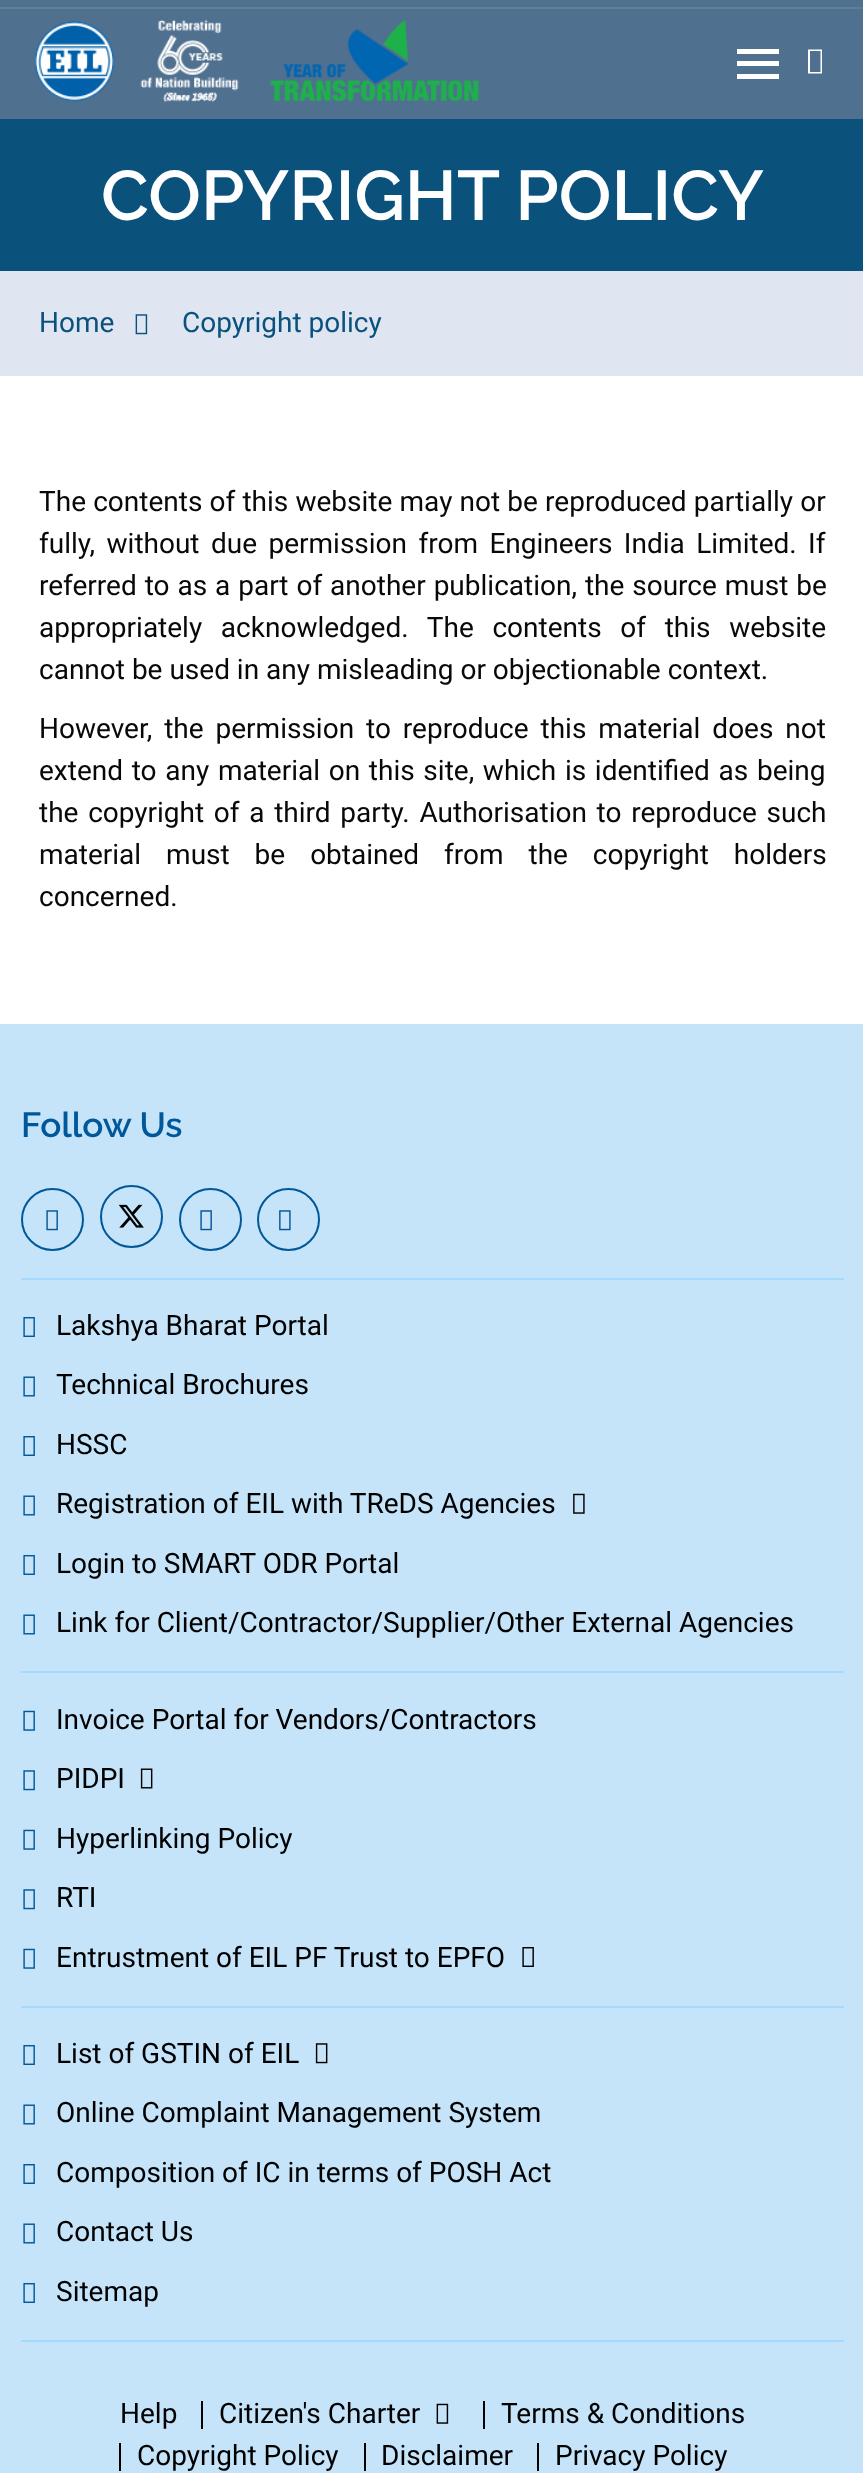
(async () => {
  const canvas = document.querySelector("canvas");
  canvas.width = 863;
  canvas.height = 2473;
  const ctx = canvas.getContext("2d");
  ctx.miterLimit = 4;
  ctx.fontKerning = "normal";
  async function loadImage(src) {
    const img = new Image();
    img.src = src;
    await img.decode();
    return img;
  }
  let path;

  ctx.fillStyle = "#ffffff";
  ctx.fillRect(0, 0, 863, 2473);
  ctx.fillStyle = "#50708f";
  ctx.fillRect(0, 0, 863, 119);
  ctx.fillStyle = "#617e9b";
  ctx.fillRect(0, 7, 863, 2);
  ctx.drawImage(await loadImage("img/1.png"), 34, 19, 445, 84);
  for (const [x, y, w, h, color] of [
    [737, 49, 42, 5, "#ffffff"],
    [737, 61, 42, 5, "#ffffff"],
    [737, 74, 42, 5, "#ffffff"],
  ]) {
    ctx.fillStyle = color;
    ctx.fillRect(x, y, w, h);
  }
  path = new Path2D("M808 73.5V49.5H822V73.5ZM810 72H820.5V51H810Z");
  ctx.fill(path);
  ctx.fillStyle = "#0a517c";
  ctx.fillRect(0, 119, 863, 152);
  ctx.fillStyle = "#dfe6f1";
  ctx.fillRect(0, 271, 863, 105);
  ctx.drawImage(await loadImage("img/2.png"), 135, 314, 13, 21);
  ctx.fillStyle = "#c5e4f9";
  ctx.fillRect(0, 1024, 863, 1449);
  ctx.fillStyle = "#a4daff";
  ctx.fillRect(21, 1278, 823, 2);
  ctx.beginPath();
  ctx.arc(52.5, 1219.5, 30.5, 0, Math.PI * 2);
  ctx.strokeStyle = "#00589b";
  ctx.lineWidth = 2;
  ctx.stroke();
  ctx.drawImage(await loadImage("img/3.png"), 46, 1210, 12, 21);
  ctx.beginPath();
  ctx.arc(131.5, 1216.5, 30.5, 0, Math.PI * 2);
  ctx.stroke();
  ctx.drawImage(await loadImage("img/4.png"), 118, 1204, 26, 24);
  ctx.beginPath();
  ctx.arc(210.5, 1219.5, 30.5, 0, Math.PI * 2);
  ctx.stroke();
  ctx.drawImage(await loadImage("img/3.png"), 200, 1210, 12, 21);
  ctx.beginPath();
  ctx.arc(288.5, 1219.5, 30.5, 0, Math.PI * 2);
  ctx.stroke();
  ctx.drawImage(await loadImage("img/5.png"), 279, 1210, 12, 21);
  ctx.fillRect(21, 1671, 823, 2);
  ctx.drawImage(await loadImage("img/6.png"), 23, 1317, 12, 20);
  ctx.drawImage(await loadImage("img/7.png"), 23, 1376, 12, 21);
  ctx.drawImage(await loadImage("img/6.png"), 23, 1436, 12, 20);
  ctx.drawImage(await loadImage("img/7.png"), 23, 1495, 12, 21);
  ctx.drawImage(await loadImage("img/8.png"), 573, 1493, 12, 21);
  ctx.drawImage(await loadImage("img/6.png"), 23, 1555, 12, 20);
  ctx.drawImage(await loadImage("img/7.png"), 23, 1614, 12, 21);
  ctx.fillRect(21, 2006, 823, 2);
  ctx.drawImage(await loadImage("img/9.png"), 23, 1710, 12, 21);
  ctx.drawImage(await loadImage("img/10.png"), 23, 1770, 12, 21);
  ctx.drawImage(await loadImage("img/11.png"), 140, 1768, 13, 21);
  ctx.drawImage(await loadImage("img/9.png"), 23, 1829, 12, 21);
  ctx.drawImage(await loadImage("img/10.png"), 23, 1889, 12, 21);
  ctx.drawImage(await loadImage("img/9.png"), 23, 1948, 12, 21);
  ctx.drawImage(await loadImage("img/12.png"), 522, 1947, 12, 20);
  ctx.fillRect(21, 2340, 823, 2);
  ctx.drawImage(await loadImage("img/6.png"), 23, 2045, 12, 20);
  ctx.drawImage(await loadImage("img/13.png"), 315, 2043, 13, 21);
  ctx.drawImage(await loadImage("img/7.png"), 23, 2104, 12, 21);
  ctx.drawImage(await loadImage("img/6.png"), 23, 2164, 12, 20);
  ctx.drawImage(await loadImage("img/7.png"), 23, 2223, 12, 21);
  ctx.drawImage(await loadImage("img/6.png"), 23, 2283, 12, 20);
  ctx.fillStyle = "#000000";
  ctx.fillRect(201, 2401, 2, 28);
  ctx.drawImage(await loadImage("img/14.png"), 436, 2403, 13, 21);
  for (const [x, y, w, h, color] of [
    [483, 2401, 2, 28, "#000000"],
    [119, 2443, 2, 28, "#000000"],
    [364, 2443, 2, 28, "#000000"],
    [537, 2443, 2, 28, "#000000"],
  ]) {
    ctx.fillStyle = color;
    ctx.fillRect(x, y, w, h);
  }
  ctx.font = "600 70px Raleway";
  ctx.fillStyle = "#ffffff";
  ctx.fillText("COPYRIGHT POLICY", 101, 220);
  ctx.font = "28px Roboto";
  ctx.fillStyle = "#0a517c";
  ctx.fillText("Home", 39, 332);
  ctx.fillText("Copyright policy", 182, 332);
  ctx.wordSpacing = "0.25px";
  ctx.fillStyle = "#080808";
  ctx.fillText("The contents of this website may not be reproduced partially or", 39, 511);
  ctx.wordSpacing = "4.5px";
  ctx.fillText("fully, without due permission from Engineers India Limited. If", 39, 553);
  ctx.wordSpacing = "1px";
  ctx.fillText("referred to as a part of another publication, the source must be", 39, 595);
  ctx.wordSpacing = "11.75px";
  ctx.fillText("appropriately acknowledged. The contents of this website", 39, 637);
  ctx.wordSpacing = "0px";
  ctx.fillText("cannot be used in any misleading or objectionable context.", 39, 679);
  ctx.wordSpacing = "5px";
  ctx.fillText("However, the permission to reproduce this material does not", 39, 738);
  ctx.wordSpacing = "1.75px";
  ctx.fillText("extend to any material on this site, which is identified as being", 39, 780);
  ctx.wordSpacing = "2.75px";
  ctx.fillText("the copyright of a third party. Authorisation to reproduce such", 39, 822);
  ctx.wordSpacing = "18px";
  ctx.fillText("material must be obtained from the copyright holders", 39, 864);
  ctx.wordSpacing = "0px";
  ctx.fillText("concerned.", 39, 906);
  ctx.font = "600 35px Raleway";
  ctx.fillStyle = "#00589b";
  ctx.fillText("Follow Us", 21, 1137);
  ctx.font = "28px Roboto";
  ctx.fillStyle = "#000000";
  for (const [text, x, y] of [
    ["Lakshya Bharat Portal", 56, 1335],
    ["Technical Brochures", 56, 1394],
    ["HSSC", 56, 1454],
    ["Registration of EIL with TReDS Agencies", 56, 1513],
    ["Login to SMART ODR Portal", 56, 1573],
    ["Link for Client/Contractor/Supplier/Other External Agencies", 56, 1632],
    ["Invoice Portal for Vendors/Contractors", 56, 1729],
    ["PIDPI", 56, 1788],
    ["Hyperlinking Policy", 56, 1848],
    ["RTI", 56, 1907],
    ["Entrustment of EIL PF Trust to EPFO", 56, 1967],
    ["List of GSTIN of EIL", 56, 2063],
    ["Online Complaint Management System", 56, 2122],
    ["Composition of IC in terms of POSH Act", 56, 2182],
    ["Contact Us", 56, 2241],
    ["Sitemap", 56, 2301],
    ["Help", 120, 2423],
    ["Citizen's Charter", 219, 2423],
    ["Terms & Conditions", 501, 2423],
    ["Copyright Policy", 137, 2465],
    ["Disclaimer", 381, 2465],
    ["Privacy Policy", 555, 2465],
  ]) {
    ctx.fillText(text, x, y);
  }
})();
